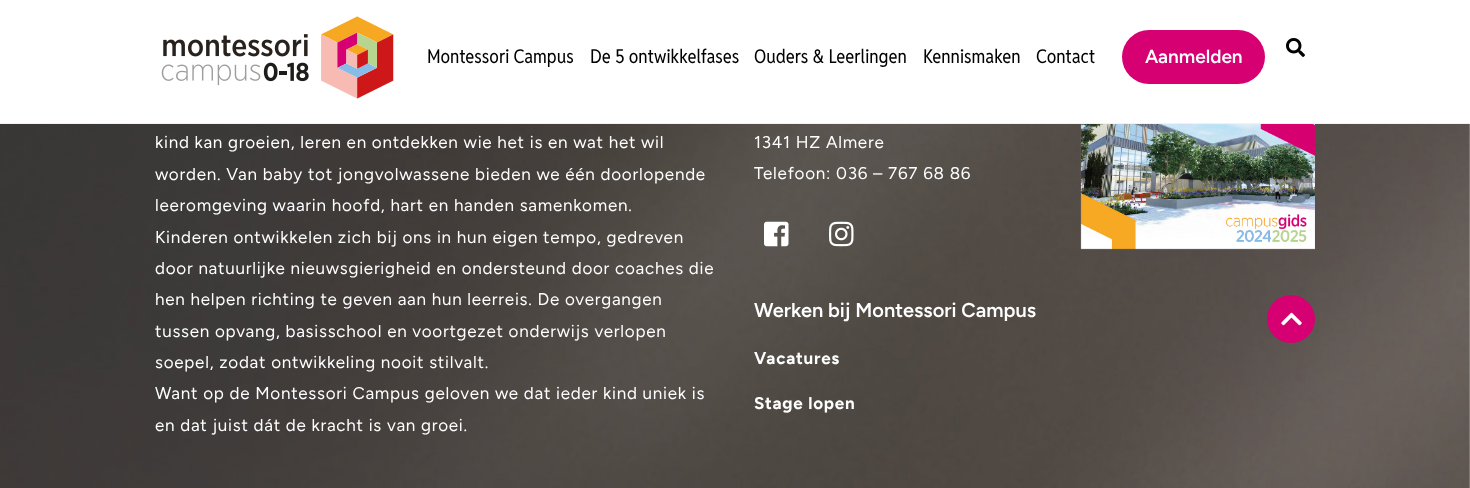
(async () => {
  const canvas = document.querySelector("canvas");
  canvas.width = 1470;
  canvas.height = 488;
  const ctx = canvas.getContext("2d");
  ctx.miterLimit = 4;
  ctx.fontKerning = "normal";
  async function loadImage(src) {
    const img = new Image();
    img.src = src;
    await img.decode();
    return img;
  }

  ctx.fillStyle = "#ffffff";
  ctx.fillRect(0, 0, 1470, 488);
  ctx.fillStyle = "#f2f2f2";
  ctx.fillRect(0, 123, 1470, 1);
  ctx.drawImage(await loadImage("img/1.png"), 161, 16, 233, 83);
  ctx.fillStyle = "#d60073";
  ctx.beginPath();
  ctx.roundRect(1122, 30, 143, 54, 27);
  ctx.fill();
  ctx.drawImage(await loadImage("img/2.png"), 1286, 38, 19, 19);
  ctx.drawImage(await loadImage("img/3.png"), 0, 124, 1470, 364);
  ctx.drawImage(await loadImage("img/4.png"), 764, 221, 25, 26);
  ctx.drawImage(await loadImage("img/5.png"), 829, 221, 25, 26);
  ctx.drawImage(await loadImage("img/6.png"), 1080, 124, 235, 126);
  ctx.beginPath();
  ctx.arc(1291, 319, 24, 0, Math.PI * 2);
  ctx.fill();
  ctx.drawImage(await loadImage("img/7.png"), 1281, 312, 21, 14);
  ctx.font = "19px Reddit Sans Condensed";
  ctx.fillStyle = "#000000";
  for (const [text, x, y] of [
    ["Montessori Campus", 427, 63],
    ["De 5 ontwikkelfases", 590, 63],
    ["Ouders & Leerlingen", 754, 63],
    ["Kennismaken", 923, 63],
    ["Contact", 1036, 63],
  ]) {
    ctx.fillText(text, x, y);
  }
  ctx.font = "600 19px Figtree";
  ctx.fillStyle = "#ffffff";
  ctx.fillText("Aanmelden", 1145, 63);
  ctx.letterSpacing = "0.75px";
  ctx.font = "300 17px Figtree";
  for (const [text, x, y] of [
    ["kind kan groeien, leren en ontdekken wie het is en wat het wil", 155, 148],
    ["worden. Van baby tot jongvolwassene bieden we één doorlopende", 155, 180],
    ["leeromgeving waarin hoofd, hart en handen samenkomen.", 155, 211],
    ["Kinderen ontwikkelen zich bij ons in hun eigen tempo, gedreven", 155, 243],
    ["door natuurlijke nieuwsgierigheid en ondersteund door coaches die", 155, 274],
    ["hen helpen richting te geven aan hun leerreis. De overgangen", 155, 305],
    ["tussen opvang, basisschool en voortgezet onderwijs verlopen", 155, 337],
    ["soepel, zodat ontwikkeling nooit stilvalt.", 155, 368],
    ["Want op de Montessori Campus geloven we dat ieder kind uniek is", 155, 399],
    ["en dat juist dát de kracht is van groei.", 155, 431],
    ["1341 HZ Almere", 754, 148],
    ["Telefoon: 036 – 767 68 86", 754, 179],
  ]) {
    ctx.fillText(text, x, y);
  }
  ctx.letterSpacing = "0px";
  ctx.font = "600 20px Figtree";
  ctx.fillText("Werken bij Montessori Campus", 754, 317);
  ctx.letterSpacing = "0.75px";
  ctx.font = "bold 17px Figtree";
  ctx.fillText("Vacatures", 754, 364);
  ctx.fillText("Stage lopen", 754, 409);
})();
